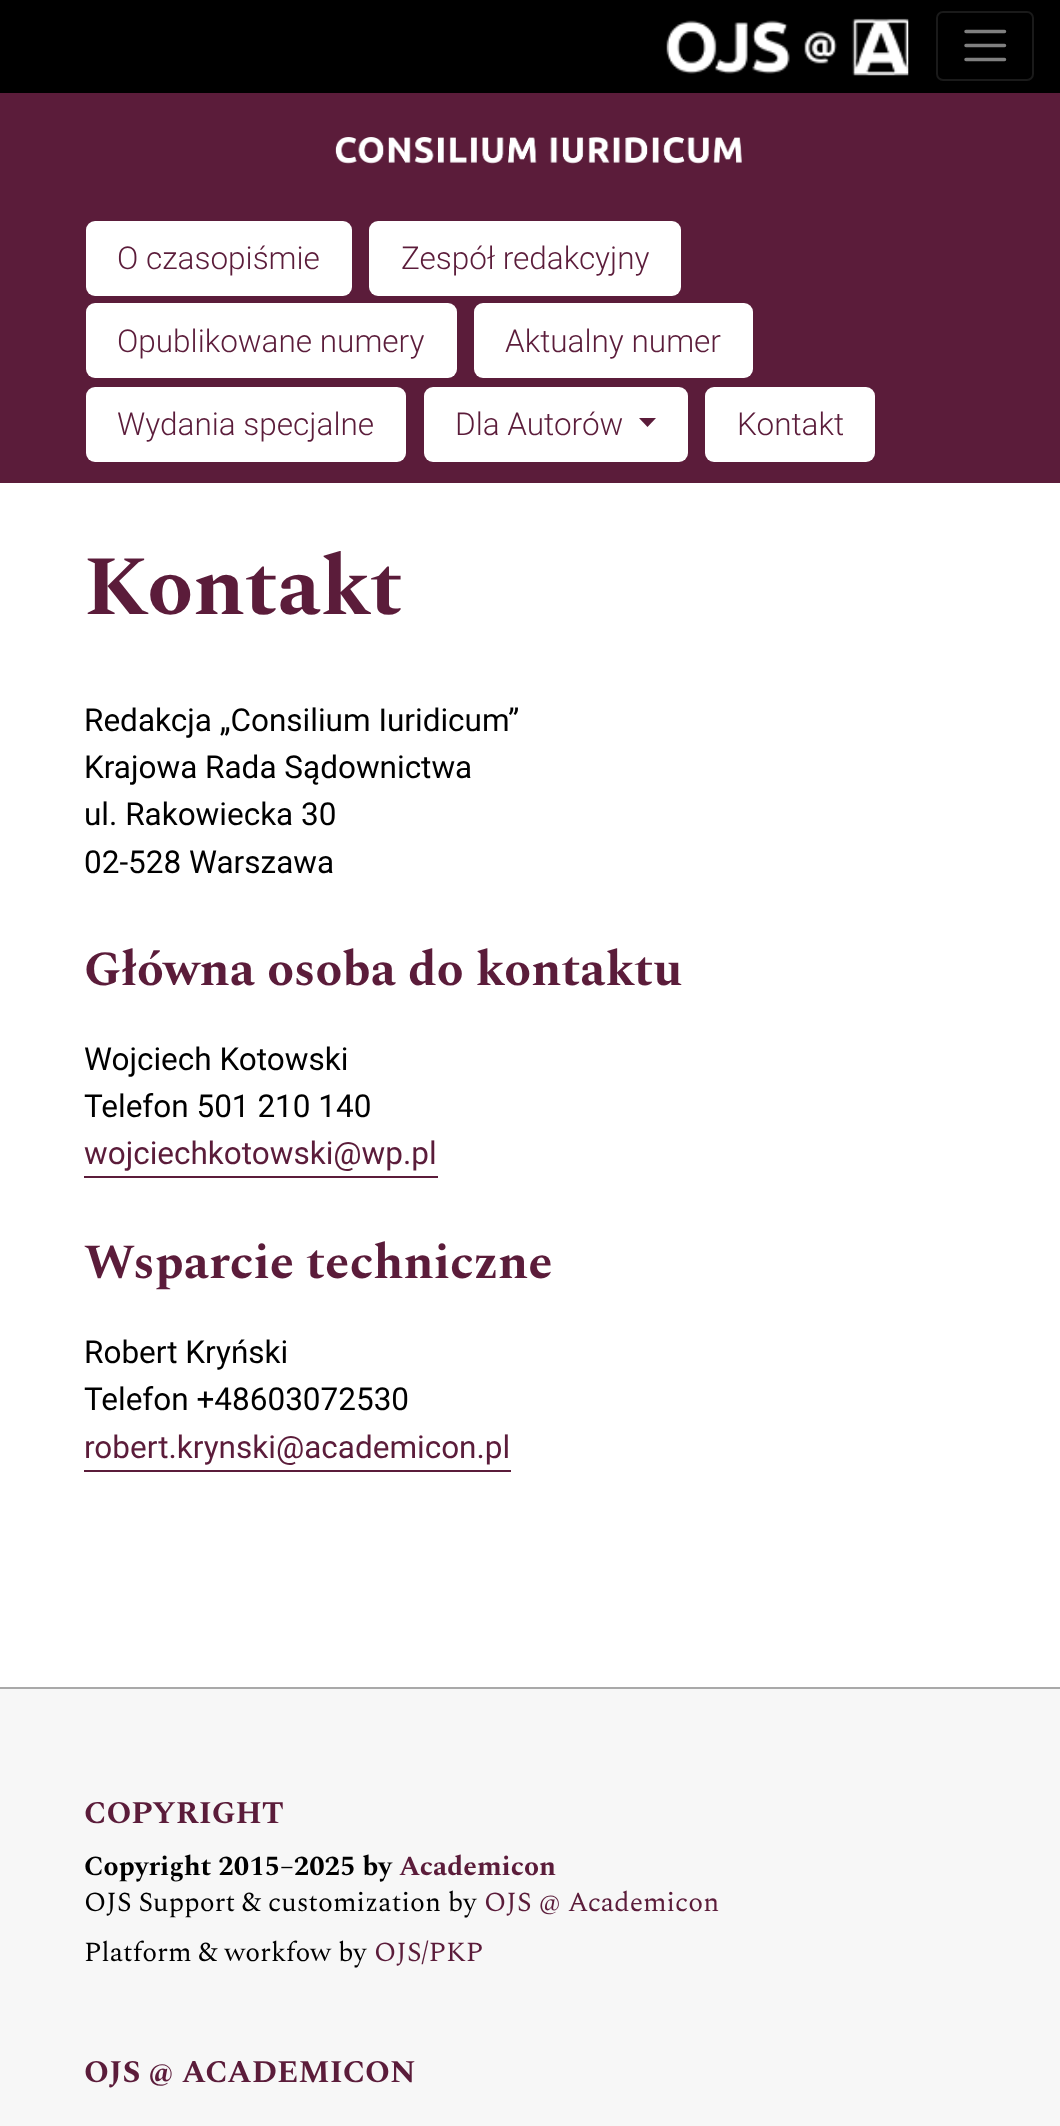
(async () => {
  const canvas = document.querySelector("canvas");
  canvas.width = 1060;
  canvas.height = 2126;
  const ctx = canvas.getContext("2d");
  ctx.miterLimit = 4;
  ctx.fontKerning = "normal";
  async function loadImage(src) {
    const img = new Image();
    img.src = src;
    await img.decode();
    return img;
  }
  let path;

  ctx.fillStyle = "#ffffff";
  ctx.fillRect(0, 0, 1060, 2126);
  ctx.fillStyle = "#5b1c3a";
  ctx.fillRect(0, 93, 1060, 390);
  ctx.fillStyle = "#000000";
  ctx.fillRect(0, 0, 1060, 93);
  ctx.drawImage(await loadImage("img/1.png"), 666, 18, 243, 58);
  ctx.beginPath();
  ctx.roundRect(937, 12, 96, 68, 6);
  ctx.strokeStyle = "#1a1a1a";
  ctx.lineWidth = 2;
  ctx.stroke();
  path = new Path2D("M966 31.5H1004.5M966 45.5H1004.5M966 59.5H1004.5");
  ctx.strokeStyle = "#808080";
  ctx.lineWidth = 3.5;
  ctx.lineCap = "round";
  ctx.stroke(path);
  ctx.drawImage(await loadImage("img/2.png"), 335, 137, 407, 27);
  ctx.fillStyle = "#ffffff";
  ctx.beginPath();
  ctx.roundRect(86, 221, 266, 75, 9);
  ctx.fill();
  ctx.beginPath();
  ctx.roundRect(369, 221, 312, 75, 9);
  ctx.fill();
  ctx.beginPath();
  ctx.roundRect(86, 303, 371, 75, 9);
  ctx.fill();
  ctx.beginPath();
  ctx.roundRect(474, 303, 279, 75, 9);
  ctx.fill();
  ctx.beginPath();
  ctx.roundRect(86, 387, 320, 75, 9);
  ctx.fill();
  ctx.beginPath();
  ctx.roundRect(424, 387, 264, 75, 9);
  ctx.fill();
  ctx.fillStyle = "#5b1c3a";
  path = new Path2D("M639 418H656L647.5 427Z");
  ctx.fill(path);
  ctx.fillStyle = "#ffffff";
  ctx.beginPath();
  ctx.roundRect(705, 387, 170, 75, 9);
  ctx.fill();
  for (const [x, y, w, h, color] of [
    [84, 1176, 354, 2, "#5b1c3a"],
    [84, 1470, 427, 2, "#5b1c3a"],
    [0, 1689, 1060, 437, "#f7f7f7"],
    [0, 1687, 1060, 2, "#a9a9a9"],
  ]) {
    ctx.fillStyle = color;
    ctx.fillRect(x, y, w, h);
  }
  ctx.font = "300 31.5px Roboto";
  ctx.fillStyle = "#5b1c3a";
  for (const [text, x, y] of [
    ["O czasopiśmie", 117, 269],
    ["Zespół redakcyjny", 401, 269],
    ["Opublikowane numery", 117, 352],
    ["Aktualny numer", 505, 352],
    ["Wydania specjalne", 117, 435],
    ["Dla Autorów", 455, 435],
    ["Kontakt", 737, 435],
  ]) {
    ctx.fillText(text, x, y);
  }
  ctx.font = "bold 84px Spectral";
  ctx.fillText("Kontakt", 84, 614);
  ctx.font = "31.5px Roboto";
  ctx.fillStyle = "#000000";
  for (const [text, x, y] of [
    ["Redakcja „Consilium Iuridicum”", 84, 731],
    ["Krajowa Rada Sądownictwa", 84, 778],
    ["ul. Rakowiecka 30", 84, 825],
    ["02-528 Warszawa", 84, 873],
  ]) {
    ctx.fillText(text, x, y);
  }
  ctx.font = "bold 49px Spectral";
  ctx.fillStyle = "#5b1c3a";
  ctx.fillText("Główna osoba do kontaktu", 84, 985);
  ctx.font = "31.5px Roboto";
  ctx.fillStyle = "#000000";
  ctx.fillText("Wojciech Kotowski", 84, 1070);
  ctx.fillText("Telefon 501 210 140", 84, 1117);
  ctx.fillStyle = "#5b1c3a";
  ctx.fillText("wojciechkotowski@wp.pl", 84, 1164);
  ctx.font = "bold 49px Spectral";
  ctx.fillText("Wsparcie techniczne", 84, 1278);
  ctx.font = "31.5px Roboto";
  ctx.fillStyle = "#000000";
  ctx.fillText("Robert Kryński", 84, 1363);
  ctx.fillText("Telefon +48603072530", 84, 1410);
  ctx.fillStyle = "#5b1c3a";
  ctx.fillText("robert.krynski@academicon.pl", 84, 1458);
  ctx.font = "bold 31.5px Spectral";
  ctx.fillText("COPYRIGHT", 84, 1823);
  ctx.font = "bold 27.5px Spectral";
  ctx.fillStyle = "#000000";
  ctx.fillText("Copyright 2015–2025 by", 84, 1875);
  ctx.fillStyle = "#5b1c3a";
  ctx.fillText("Academicon", 399, 1875);
  ctx.font = "27.5px Spectral";
  ctx.fillStyle = "#000000";
  ctx.fillText("OJS Support & customization by", 84, 1911);
  ctx.fillStyle = "#5b1c3a";
  ctx.fillText("OJS @ Academicon", 484, 1911);
  ctx.fillStyle = "#000000";
  ctx.fillText("Platform & workfow by", 84, 1961);
  ctx.fillStyle = "#5b1c3a";
  ctx.fillText("OJS/PKP", 374, 1961);
  ctx.font = "bold 31.5px Spectral";
  ctx.fillText("OJS @ ACADEMICON", 84, 2082);
})();
